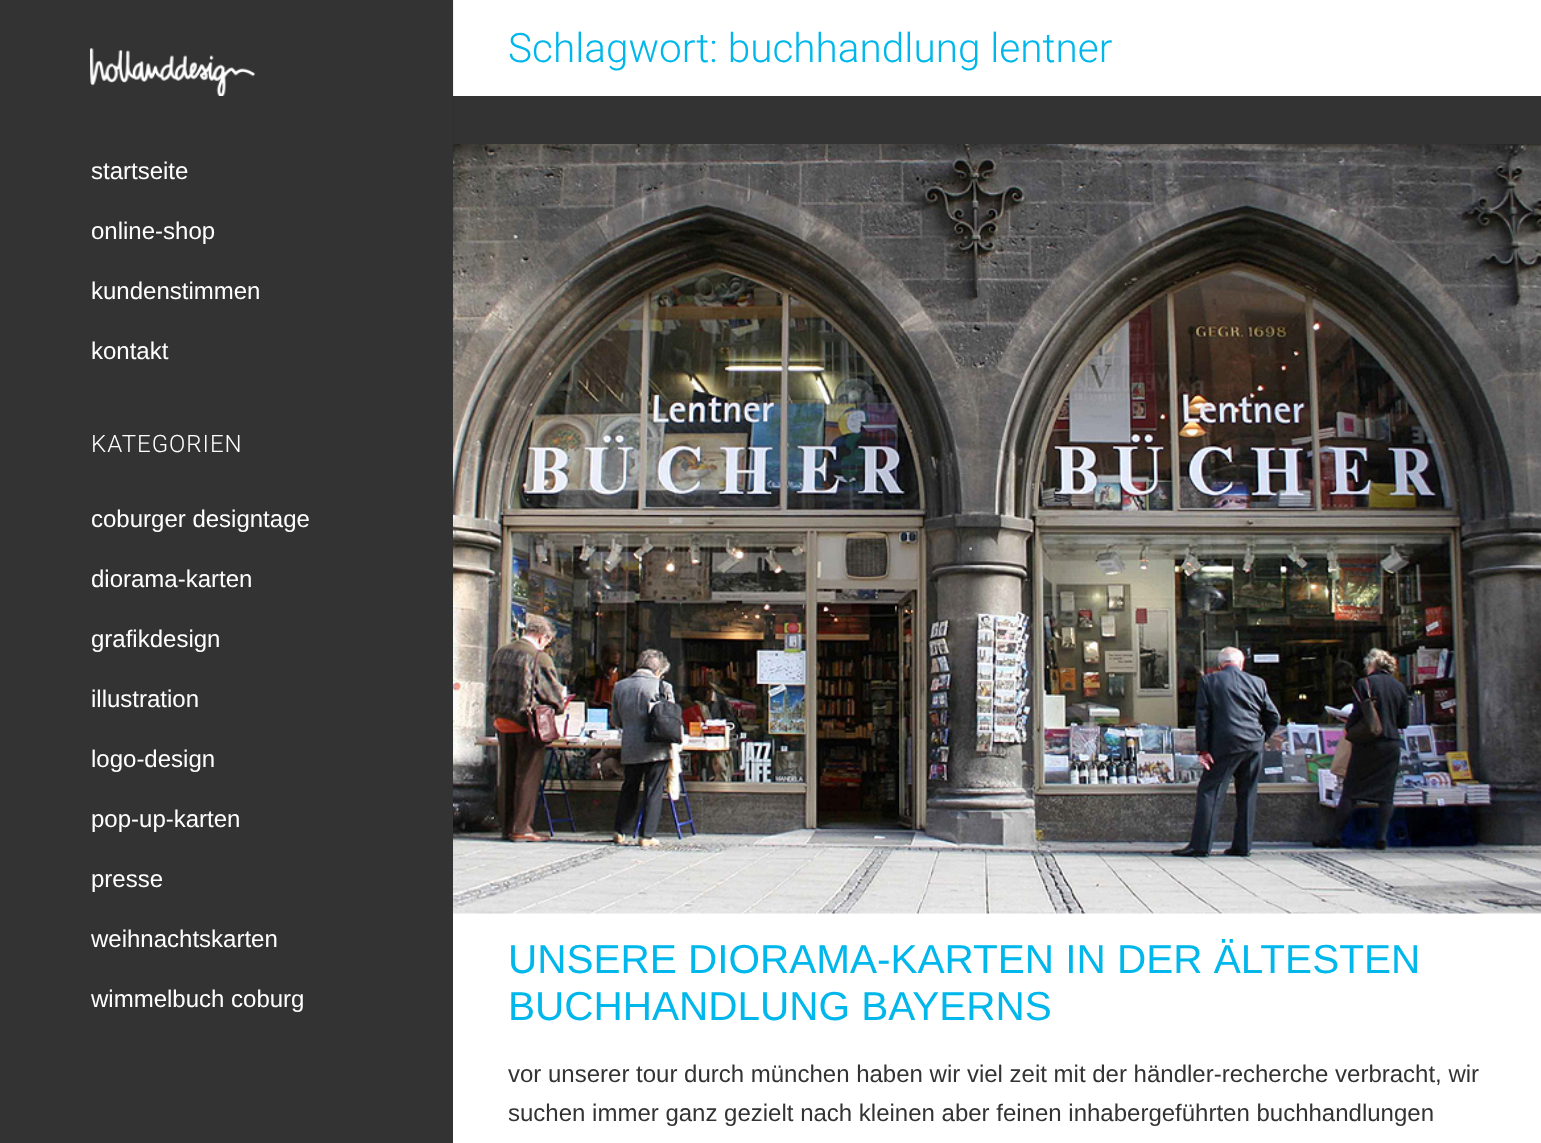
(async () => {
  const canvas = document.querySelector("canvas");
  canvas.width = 1541;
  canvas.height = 1143;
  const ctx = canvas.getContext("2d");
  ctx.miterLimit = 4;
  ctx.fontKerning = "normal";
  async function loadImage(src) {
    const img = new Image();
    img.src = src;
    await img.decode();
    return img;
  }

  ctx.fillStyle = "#333333";
  ctx.fillRect(0, 0, 1541, 1143);
  ctx.fillStyle = "#ffffff";
  ctx.fillRect(453, 0, 1088, 96);
  ctx.fillStyle = "rgba(0, 0, 0, 0.15)";
  ctx.filter = "blur(1px)";
  ctx.beginPath();
  ctx.rect(0, 0, 453, 1143);
  ctx.fill();
  ctx.filter = "none";
  ctx.fillStyle = "#333333";
  ctx.fillRect(0, 0, 453, 1143);
  ctx.drawImage(await loadImage("img/1.png"), 90, 48, 166, 48);
  ctx.fillStyle = "#ffffff";
  ctx.fillRect(453, 913, 1088, 230);
  ctx.drawImage(await loadImage("img/2.png"), 453, 144, 1088, 770);
  ctx.font = "24px Liberation Sans";
  for (const [text, x, y] of [
    ["startseite", 91, 179],
    ["online-shop", 91, 239],
    ["kundenstimmen", 91, 299],
    ["kontakt", 91, 359],
  ]) {
    ctx.fillText(text, x, y);
  }
  ctx.letterSpacing = "1px";
  ctx.font = "300 24px Roboto";
  ctx.fillText("KATEGORIEN", 91, 452);
  ctx.letterSpacing = "0px";
  ctx.font = "24px Liberation Sans";
  for (const [text, x, y] of [
    ["coburger designtage", 91, 527],
    ["diorama-karten", 91, 587],
    ["grafikdesign", 91, 647],
    ["illustration", 91, 707],
    ["logo-design", 91, 767],
    ["pop-up-karten", 91, 827],
    ["presse", 91, 887],
    ["weihnachtskarten", 91, 947],
    ["wimmelbuch coburg", 91, 1007],
  ]) {
    ctx.fillText(text, x, y);
  }
  ctx.font = "300 40.5px Roboto";
  ctx.fillStyle = "#00b7eb";
  ctx.fillText("Schlagwort: buchhandlung lentner", 508, 62);
  ctx.font = "40.5px Liberation Sans";
  ctx.fillText("UNSERE DIORAMA-KARTEN IN DER ÄLTESTEN", 508, 973);
  ctx.fillText("BUCHHANDLUNG BAYERNS", 508, 1020);
  ctx.font = "24px Liberation Sans";
  ctx.fillStyle = "#333333";
  ctx.fillText("vor unserer tour durch münchen haben wir viel zeit mit der händler-recherche verbracht, wir", 508, 1082);
  ctx.fillText("suchen immer ganz gezielt nach kleinen aber feinen inhabergeführten buchhandlungen", 508, 1121);
})();
